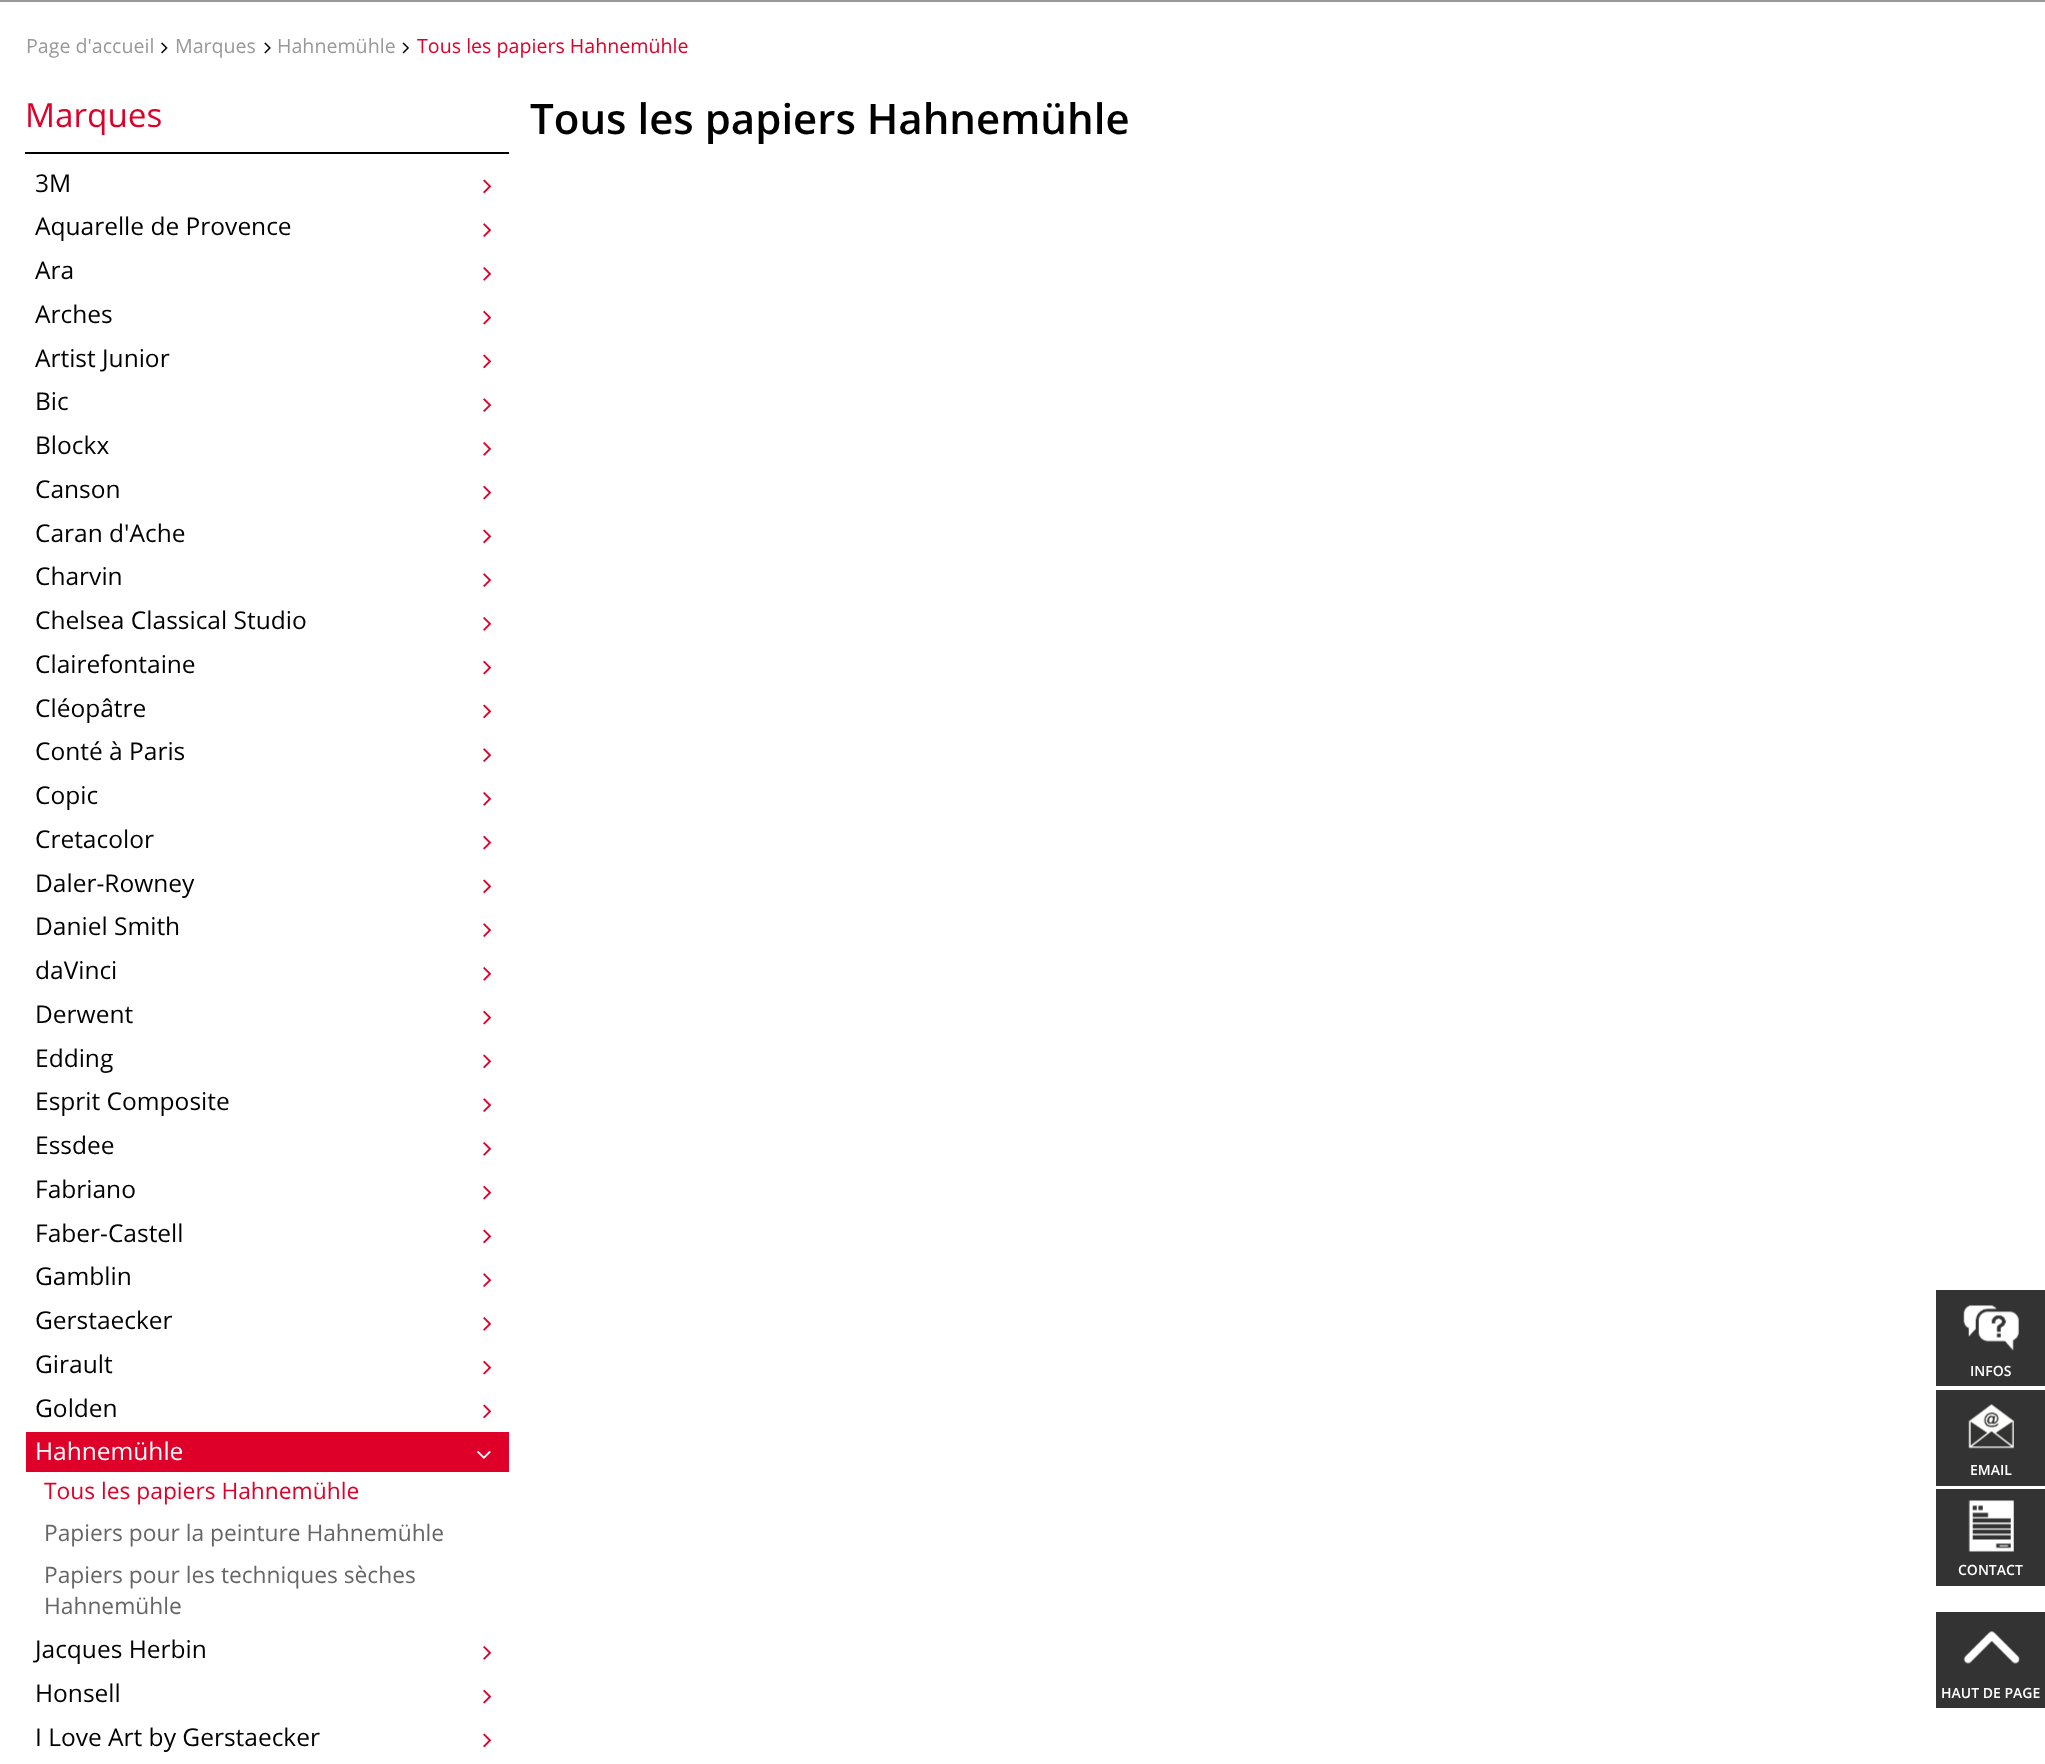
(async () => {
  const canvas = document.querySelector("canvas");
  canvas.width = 2045;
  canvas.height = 1764;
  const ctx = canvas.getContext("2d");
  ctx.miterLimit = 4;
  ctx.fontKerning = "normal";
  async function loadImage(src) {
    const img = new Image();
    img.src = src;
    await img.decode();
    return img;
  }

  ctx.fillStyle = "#ffffff";
  ctx.fillRect(0, 0, 2045, 1764);
  ctx.fillStyle = "#999999";
  ctx.fillRect(0, 0, 2045, 2);
  ctx.drawImage(await loadImage("img/1.png"), 161, 42, 7, 12);
  ctx.drawImage(await loadImage("img/2.png"), 264, 42, 7, 12);
  ctx.drawImage(await loadImage("img/3.png"), 402, 42, 7, 12);
  ctx.fillStyle = "#000000";
  ctx.fillRect(25, 152, 484, 2);
  ctx.drawImage(await loadImage("img/4.png"), 483, 179, 9, 15);
  ctx.drawImage(await loadImage("img/5.png"), 483, 223, 9, 14);
  ctx.drawImage(await loadImage("img/6.png"), 483, 267, 9, 14);
  ctx.drawImage(await loadImage("img/7.png"), 483, 310, 9, 15);
  ctx.drawImage(await loadImage("img/4.png"), 483, 354, 9, 15);
  ctx.drawImage(await loadImage("img/5.png"), 483, 398, 9, 14);
  ctx.drawImage(await loadImage("img/6.png"), 483, 442, 9, 14);
  ctx.drawImage(await loadImage("img/7.png"), 483, 485, 9, 15);
  ctx.drawImage(await loadImage("img/4.png"), 483, 529, 9, 15);
  ctx.drawImage(await loadImage("img/5.png"), 483, 573, 9, 14);
  ctx.drawImage(await loadImage("img/6.png"), 483, 617, 9, 14);
  ctx.drawImage(await loadImage("img/7.png"), 483, 660, 9, 15);
  ctx.drawImage(await loadImage("img/4.png"), 483, 704, 9, 15);
  ctx.drawImage(await loadImage("img/5.png"), 483, 748, 9, 14);
  ctx.drawImage(await loadImage("img/6.png"), 483, 792, 9, 14);
  ctx.drawImage(await loadImage("img/7.png"), 483, 835, 9, 15);
  ctx.drawImage(await loadImage("img/4.png"), 483, 879, 9, 15);
  ctx.drawImage(await loadImage("img/5.png"), 483, 923, 9, 14);
  ctx.drawImage(await loadImage("img/6.png"), 483, 967, 9, 14);
  ctx.drawImage(await loadImage("img/7.png"), 483, 1010, 9, 15);
  ctx.drawImage(await loadImage("img/4.png"), 483, 1054, 9, 15);
  ctx.drawImage(await loadImage("img/5.png"), 483, 1098, 9, 14);
  ctx.drawImage(await loadImage("img/6.png"), 483, 1142, 9, 14);
  ctx.drawImage(await loadImage("img/7.png"), 483, 1185, 9, 15);
  ctx.drawImage(await loadImage("img/4.png"), 483, 1229, 9, 15);
  ctx.drawImage(await loadImage("img/5.png"), 483, 1273, 9, 14);
  ctx.drawImage(await loadImage("img/6.png"), 483, 1317, 9, 14);
  ctx.drawImage(await loadImage("img/7.png"), 483, 1360, 9, 15);
  ctx.drawImage(await loadImage("img/4.png"), 483, 1404, 9, 15);
  ctx.fillStyle = "#df0029";
  ctx.fillRect(26, 1432, 483, 40);
  ctx.drawImage(await loadImage("img/8.png"), 477, 1451, 14, 8);
  ctx.drawImage(await loadImage("img/6.png"), 483, 1646, 9, 14);
  ctx.drawImage(await loadImage("img/7.png"), 483, 1689, 9, 15);
  ctx.drawImage(await loadImage("img/4.png"), 483, 1733, 9, 15);
  ctx.fillStyle = "#333333";
  ctx.fillRect(1936, 1290, 109, 96);
  ctx.drawImage(await loadImage("img/9.png"), 1963, 1305, 56, 46);
  ctx.fillRect(1936, 1390, 109, 96);
  ctx.drawImage(await loadImage("img/10.png"), 1968, 1404, 46, 45);
  ctx.fillRect(1936, 1489, 109, 97);
  ctx.drawImage(await loadImage("img/11.png"), 1968, 1500, 46, 52);
  ctx.fillRect(1936, 1612, 109, 96);
  ctx.drawImage(await loadImage("img/12.png"), 1963, 1631, 57, 33);
  ctx.font = "19.6px Open Sans";
  ctx.fillStyle = "#999999";
  for (const [text, x, y] of [
    ["Page d'accueil", 26, 53],
    ["Marques", 175, 53],
    ["Hahnemühle", 277, 53],
  ]) {
    ctx.fillText(text, x, y);
  }
  ctx.fillStyle = "#df0029";
  ctx.fillText("Tous les papiers Hahnemühle", 417, 53);
  ctx.font = "33.25px Open Sans";
  ctx.fillText("Marques", 25, 127);
  ctx.font = "24.5px Open Sans";
  ctx.fillStyle = "#000000";
  for (const [text, x, y] of [
    ["3M", 35, 192],
    ["Aquarelle de Provence", 35, 235],
    ["Ara", 35, 279],
    ["Arches", 35, 323],
    ["Artist Junior", 35, 367],
    ["Bic", 35, 410],
    ["Blockx", 35, 454],
    ["Canson", 35, 498],
    ["Caran d'Ache", 35, 542],
    ["Charvin", 35, 585],
    ["Chelsea Classical Studio", 35, 629],
    ["Clairefontaine", 35, 673],
    ["Cléopâtre", 35, 717],
    ["Conté à Paris", 35, 760],
    ["Copic", 35, 804],
    ["Cretacolor", 35, 848],
    ["Daler-Rowney", 35, 892],
    ["Daniel Smith", 35, 935],
    ["daVinci", 35, 979],
    ["Derwent", 35, 1023],
    ["Edding", 35, 1067],
    ["Esprit Composite", 35, 1110],
    ["Essdee", 35, 1154],
    ["Fabriano", 35, 1198],
    ["Faber-Castell", 35, 1242],
    ["Gamblin", 35, 1285],
    ["Gerstaecker", 35, 1329],
    ["Girault", 35, 1373],
    ["Golden", 35, 1417],
  ]) {
    ctx.fillText(text, x, y);
  }
  ctx.fillStyle = "#ffffff";
  ctx.fillText("Hahnemühle", 35, 1460);
  ctx.font = "22.75px Open Sans";
  ctx.fillStyle = "#df0029";
  ctx.fillText("Tous les papiers Hahnemühle", 44, 1499);
  ctx.fillStyle = "#666666";
  for (const [text, x, y] of [
    ["Papiers pour la peinture Hahnemühle", 44, 1541],
    ["Papiers pour les techniques sèches", 44, 1583],
    ["Hahnemühle", 44, 1614],
  ]) {
    ctx.fillText(text, x, y);
  }
  ctx.font = "24.5px Open Sans";
  ctx.fillStyle = "#000000";
  for (const [text, x, y] of [
    ["Jacques Herbin", 35, 1658],
    ["Honsell", 35, 1702],
    ["I Love Art by Gerstaecker", 35, 1746],
  ]) {
    ctx.fillText(text, x, y);
  }
  ctx.font = "600 42px Open Sans";
  ctx.fillText("Tous les papiers Hahnemühle", 530, 134);
  ctx.font = "600 14px Open Sans";
  ctx.fillStyle = "#ffffff";
  for (const [text, x, y] of [
    ["INFOS", 1970, 1376],
    ["EMAIL", 1970, 1475],
    ["CONTACT", 1958, 1575],
    ["HAUT DE PAGE", 1941, 1698],
  ]) {
    ctx.fillText(text, x, y);
  }
})();
